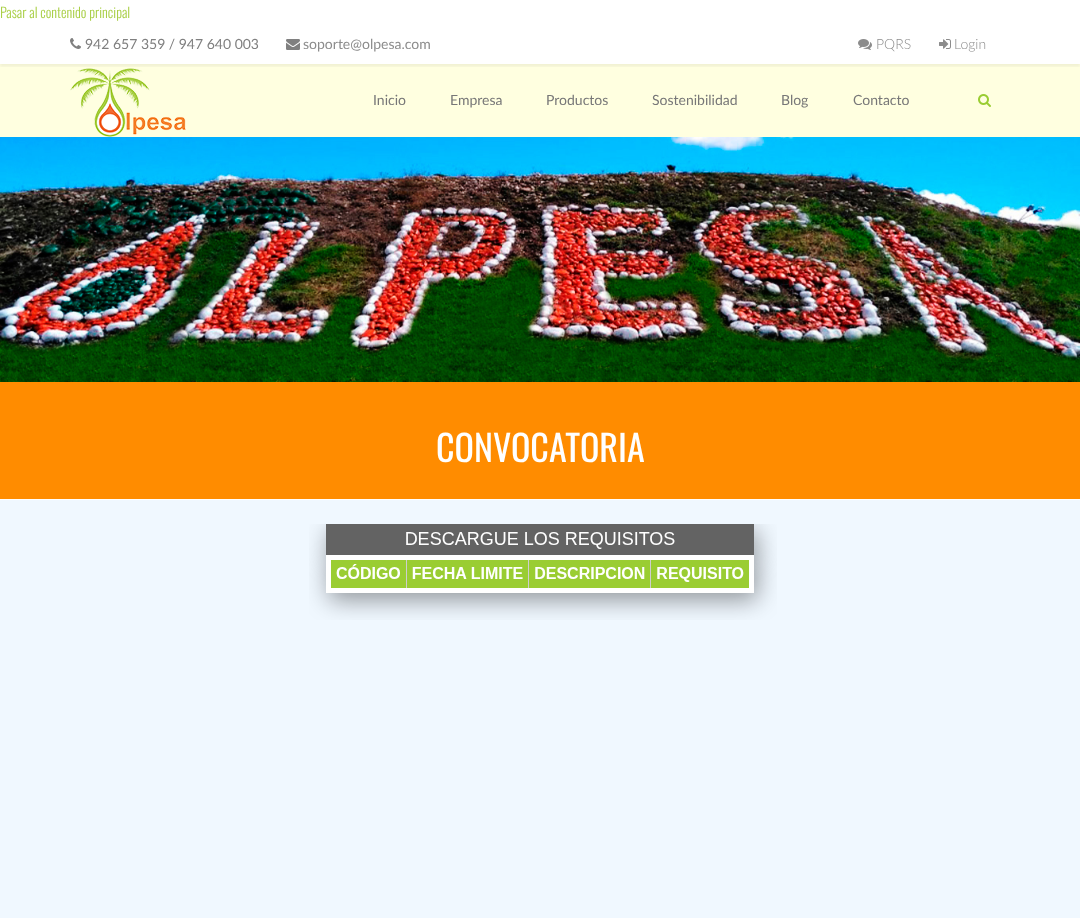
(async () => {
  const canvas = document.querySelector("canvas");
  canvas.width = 1080;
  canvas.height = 918;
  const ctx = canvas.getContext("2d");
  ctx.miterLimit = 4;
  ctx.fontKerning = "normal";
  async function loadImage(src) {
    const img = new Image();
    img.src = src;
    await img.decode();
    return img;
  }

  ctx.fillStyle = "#ffffff";
  ctx.fillRect(0, 0, 1080, 918);
  ctx.fillStyle = "#ffffe0";
  ctx.fillRect(0, 64, 1080, 73);
  ctx.save();
  ctx.beginPath();
  ctx.rect(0, 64, 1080, 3);
  ctx.clip();
  ctx.fillStyle = "rgba(0, 0, 0, 0.05)";
  ctx.filter = "blur(1.5px)";
  ctx.beginPath();
  ctx.rect(0, 27, 1080, 40);
  ctx.fill();
  ctx.filter = "none";
  ctx.restore();
  ctx.drawImage(await loadImage("img/1.png"), 70, 38, 11, 11);
  ctx.drawImage(await loadImage("img/2.png"), 286, 39, 14, 11);
  ctx.drawImage(await loadImage("img/3.png"), 858, 39, 14, 11);
  ctx.drawImage(await loadImage("img/4.png"), 939, 39, 12, 10);
  ctx.drawImage(await loadImage("img/5.png"), 70, 68, 116, 69);
  ctx.drawImage(await loadImage("img/6.png"), 978, 94, 13, 13);
  ctx.drawImage(await loadImage("img/7.png"), 0, 137, 1080, 245);
  ctx.fillStyle = "#ff8c00";
  ctx.fillRect(0, 382, 1080, 117);
  ctx.fillStyle = "#f0f8ff";
  ctx.fillRect(0, 500, 1080, 418);
  ctx.drawImage(await loadImage("img/8.png"), 309, 524, 468, 96);
  ctx.font = "300 14px Oswald";
  ctx.fillStyle = "#a9cf46";
  ctx.fillText("Pasar al contenido principal", 0, 18);
  ctx.font = "14px Lato";
  ctx.fillStyle = "#808080";
  ctx.fillText("942 657 359 / 947 640 003", 85, 49);
  ctx.fillStyle = "#8c8c8c";
  ctx.fillText("soporte@olpesa.com", 303, 49);
  ctx.font = "300 14px Lato";
  ctx.fillText("PQRS", 876, 49);
  ctx.fillText("Login", 954, 49);
  ctx.font = "14px Lato";
  ctx.fillStyle = "#777777";
  for (const [text, x, y] of [
    ["Inicio", 373, 105],
    ["Empresa", 450, 105],
    ["Productos", 546, 105],
    ["Sostenibilidad", 652, 105],
    ["Blog", 781, 105],
    ["Contacto", 853, 105],
  ]) {
    ctx.fillText(text, x, y);
  }
  ctx.font = "36px Oswald";
  ctx.fillStyle = "#ffffff";
  ctx.fillText("CONVOCATORIA", 436, 462);
})();
